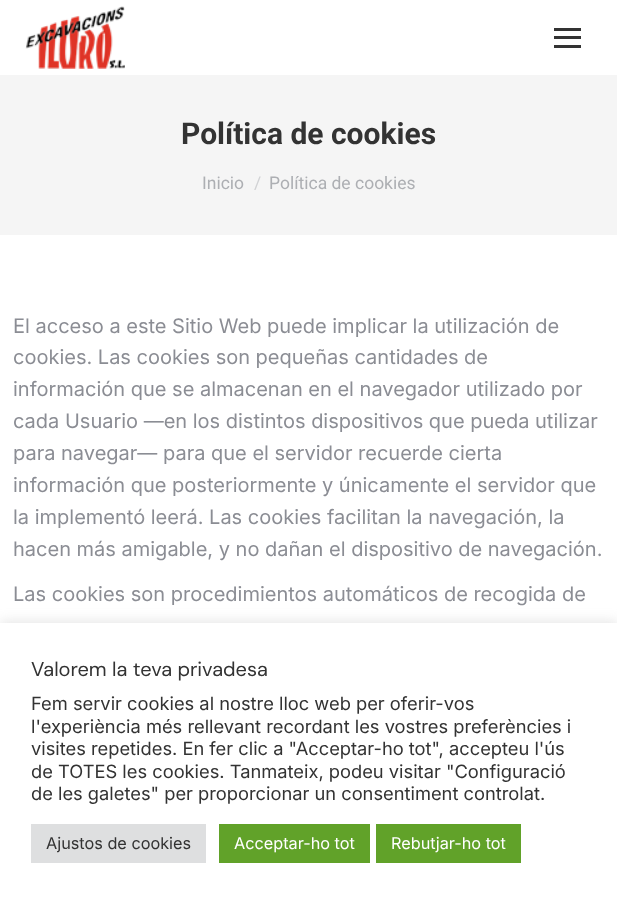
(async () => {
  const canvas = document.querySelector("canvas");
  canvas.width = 617;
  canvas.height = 899;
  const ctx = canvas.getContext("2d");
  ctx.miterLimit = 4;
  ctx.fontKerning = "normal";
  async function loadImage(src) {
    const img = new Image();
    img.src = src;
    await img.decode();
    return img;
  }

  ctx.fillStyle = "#ffffff";
  ctx.fillRect(0, 0, 617, 899);
  ctx.drawImage(await loadImage("img/1.png"), 25, 6, 100, 63);
  for (const [x, y, w, h, color] of [
    [554, 28, 27, 3, "#333333"],
    [554, 36, 27, 3, "#333333"],
    [554, 45, 27, 3, "#333333"],
    [0, 75, 617, 160, "#f5f5f5"],
  ]) {
    ctx.fillStyle = color;
    ctx.fillRect(x, y, w, h);
  }
  ctx.fillStyle = "rgba(172, 171, 171, 0.3)";
  ctx.filter = "blur(6px)";
  ctx.beginPath();
  ctx.rect(0, 621, 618, 278);
  ctx.fill();
  ctx.filter = "none";
  for (const [x, y, w, h, color] of [
    [0, 623, 617, 276, "#ffffff"],
    [31, 824, 175, 39, "#dedfe0"],
    [219, 824, 151, 39, "#61a229"],
    [376, 824, 145, 39, "#61a229"],
  ]) {
    ctx.fillStyle = color;
    ctx.fillRect(x, y, w, h);
  }
  ctx.font = "bold 30px Roboto";
  ctx.fillStyle = "#333333";
  ctx.fillText("Política de cookies", 181, 144);
  ctx.font = "17.5px Roboto";
  ctx.fillStyle = "#adafb3";
  ctx.fillText("Inicio", 202, 189);
  ctx.fillStyle = "#d1d2d4";
  ctx.fillText("/", 254, 189);
  ctx.fillStyle = "#adafb3";
  ctx.fillText("Política de cookies", 269, 189);
  ctx.font = "20px Inter";
  ctx.fillStyle = "#8b8d94";
  for (const [text, x, y] of [
    ["El acceso a este Sitio Web puede implicar la utilización de", 13, 333],
    ["cookies. Las cookies son pequeñas cantidades de", 13, 364],
    ["información que se almacenan en el navegador utilizado por", 13, 396],
    ["cada Usuario —en los distintos dispositivos que pueda utilizar", 13, 428],
    ["para navegar— para que el servidor recuerde cierta", 13, 460],
    ["información que posteriormente y únicamente el servidor que", 13, 492],
    ["la implementó leerá. Las cookies facilitan la navegación, la", 13, 524],
    ["hacen más amigable, y no dañan el dispositivo de navegación.", 13, 556],
    ["Las cookies son procedimientos automáticos de recogida de", 13, 601],
  ]) {
    ctx.fillText(text, x, y);
  }
  ctx.font = "20px DM Sans";
  ctx.fillStyle = "#333333";
  ctx.fillText("Valorem la teva privadesa", 31, 676);
  ctx.font = "18.3px Inter";
  for (const [text, x, y] of [
    ["Fem servir cookies al nostre lloc web per oferir-vos", 31, 710],
    ["l'experiència més rellevant recordant les vostres preferències i", 31, 733],
    ["visites repetides. En fer clic a \"Acceptar-ho tot\", accepteu l'ús", 31, 755],
    ["de TOTES les cookies. Tanmateix, podeu visitar \"Configuració", 31, 778],
    ["de les galetes\" per proporcionar un consentiment controlat.", 31, 800],
  ]) {
    ctx.fillText(text, x, y);
  }
  ctx.font = "16.25px Inter";
  ctx.fillText("Ajustos de cookies", 46, 849);
  ctx.fillStyle = "#ffffff";
  ctx.fillText("Acceptar-ho tot", 234, 849);
  ctx.fillText("Rebutjar-ho tot", 391, 849);
})();
